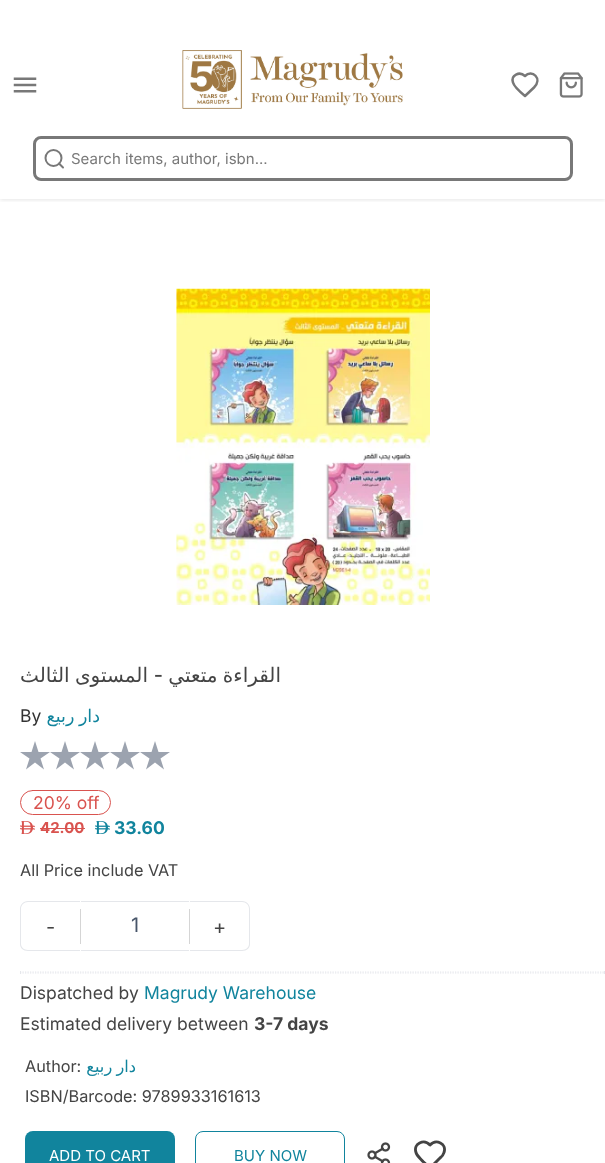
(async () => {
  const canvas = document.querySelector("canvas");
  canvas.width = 605;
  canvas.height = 1163;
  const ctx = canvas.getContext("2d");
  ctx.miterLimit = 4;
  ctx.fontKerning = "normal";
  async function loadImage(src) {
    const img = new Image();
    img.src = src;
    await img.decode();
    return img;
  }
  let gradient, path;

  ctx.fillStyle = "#ffffff";
  ctx.fillRect(0, 0, 605, 1163);
  ctx.drawImage(await loadImage("img/1.png"), 13, 77, 24, 16);
  ctx.drawImage(await loadImage("img/2.png"), 182, 50, 221, 59);
  path = new Path2D("M534 87.5C543 78.5 532 69 525 76C519.5 71 510.5 75 513 82.5C514 86.5 522 93.5 525 96Z");
  ctx.strokeStyle = "#777777";
  ctx.lineWidth = 2.5;
  ctx.lineCap = "round";
  ctx.lineJoin = "round";
  ctx.stroke(path);
  ctx.drawImage(await loadImage("img/3.png"), 559, 72, 24, 26);
  ctx.save();
  ctx.beginPath();
  ctx.rect(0, 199, 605, 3);
  ctx.clip();
  ctx.fillStyle = "rgba(0, 0, 0, 0.1)";
  ctx.filter = "blur(2px)";
  ctx.beginPath();
  ctx.rect(0, 120, 605, 80);
  ctx.fill();
  ctx.filter = "none";
  ctx.restore();
  ctx.beginPath();
  ctx.roundRect(34.5, 137.5, 537, 42, 6.5);
  ctx.strokeStyle = "#787878";
  ctx.lineWidth = 3;
  ctx.lineJoin = "miter";
  ctx.stroke();
  ctx.beginPath();
  ctx.arc(53.5, 158, 8, 0, Math.PI * 2);
  ctx.lineWidth = 2;
  ctx.stroke();
  path = new Path2D("M63 167.5L59 163.5");
  ctx.lineJoin = "round";
  ctx.stroke(path);
  ctx.drawImage(await loadImage("img/4.png"), 176, 288, 254, 317);
  ctx.fillStyle = "#9ca3af";
  path = new Path2D("M35 762.5L26 769.5L29.5 758.5L20 752H31.5L35 741L38.5 752H50L40.5 758.5L44 769.5ZM65 762.5L56 769.5L59.5 758.5L50 752H61.5L65 741L68.5 752H80L70.5 758.5L74 769.5Z");
  ctx.fill(path, "evenodd");
  path = new Path2D("M95 762.5L86 769.5L89.5 758.5L80 752H91.5L95 741L98.5 752H110L100.5 758.5L104 769.5ZM125 762.5L116 769.5L119.5 758.5L110 752H121.5L125 741L128.5 752H140L130.5 758.5L134 769.5Z");
  ctx.fill(path, "evenodd");
  path = new Path2D("M155 762.5L146 769.5L149.5 758.5L140 752H151.5L155 741L158.5 752H170L160.5 758.5L164 769.5Z");
  ctx.fill(path, "evenodd");
  ctx.beginPath();
  ctx.roundRect(20.5, 790.5, 90, 24, 12);
  ctx.strokeStyle = "#d9534f";
  ctx.lineWidth = 1;
  ctx.lineJoin = "miter";
  ctx.stroke();
  ctx.drawImage(await loadImage("img/5.png"), 20, 821, 15, 13);
  ctx.fillStyle = "#d9534f";
  ctx.fillRect(40, 828, 45, 1);
  ctx.drawImage(await loadImage("img/6.png"), 95, 821, 15, 13);
  ctx.fillStyle = "#e5e7eb";
  path = new Path2D("M28 901H80V951H28C23 951 20 948 20 944V909C20 905 23 901 28 901ZM28 902H80V950H28C24 950 21 947 21 944V909C21 905 24 902 28 902Z");
  ctx.fill(path, "evenodd");
  gradient = ctx.createLinearGradient(79, 926, 82, 926);
  gradient.addColorStop(0, "#ffffff");
  gradient.addColorStop(0.5, "#d5d5d5");
  gradient.addColorStop(1, "#ffffff");
  ctx.fillStyle = gradient;
  ctx.fillRect(80, 909, 1, 35);
  ctx.fillStyle = "#e5e7eb";
  ctx.fillRect(81, 901, 108, 1);
  ctx.fillRect(81, 950, 108, 1);
  gradient = ctx.createLinearGradient(188, 926, 191, 926);
  gradient.addColorStop(0, "#ffffff");
  gradient.addColorStop(0.5, "#d5d5d5");
  gradient.addColorStop(1, "#ffffff");
  ctx.fillStyle = gradient;
  ctx.fillRect(189, 909, 1, 35);
  ctx.fillStyle = "#e5e7eb";
  path = new Path2D("M190 901H242C247 901 250 905 250 909V944C250 948 247 951 242 951H190ZM190 902H242C246 902 249 905 249 909V944C249 947 246 950 242 950H190Z");
  ctx.fill(path, "evenodd");
  path = new Path2D("M20 972H605");
  ctx.strokeStyle = "#e5e7eb";
  ctx.lineWidth = 1.2;
  ctx.lineCap = "butt";
  ctx.setLineDash([1.25, 1.25]);
  ctx.stroke(path);
  ctx.fillRect(604, 971, 1, 3);
  path = new Path2D("M20 973H605");
  ctx.stroke(path);
  ctx.fillRect(20, 971, 1, 3);
  ctx.fillStyle = "#11849d";
  ctx.beginPath();
  ctx.roundRect(25, 1131, 150, 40, 8);
  ctx.fill();
  ctx.beginPath();
  ctx.roundRect(195.5, 1131.5, 149, 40, 7.5);
  ctx.strokeStyle = "#11849d";
  ctx.lineWidth = 1;
  ctx.setLineDash([]);
  ctx.stroke();
  ctx.drawImage(await loadImage("img/7.png"), 367, 1142, 24, 21);
  path = new Path2D("M440 1158C442 1156.5 443.5 1154.5 444 1152.5C447 1143.5 436 1138.5 430 1145C424 1138.5 413 1143.5 416 1152.5C417 1156 420.5 1158.5 423 1161.5L430 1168Z");
  ctx.strokeStyle = "#444444";
  ctx.lineWidth = 2.9;
  ctx.lineCap = "round";
  ctx.lineJoin = "round";
  ctx.stroke(path);
  ctx.font = "15px Inter";
  ctx.fillStyle = "#787878";
  ctx.fillText("Search items, author, isbn...", 71, 164);
  ctx.wordSpacing = "-1px";
  ctx.direction = "rtl";
  ctx.font = "20px DejaVu Sans";
  ctx.fillStyle = "#444444";
  ctx.fillText("المستوى الثالث", 148, 682);
  ctx.wordSpacing = "0px";
  ctx.font = "500 20px Inter";
  ctx.fillText("-", 163, 682);
  ctx.wordSpacing = "-1px";
  ctx.font = "20px DejaVu Sans";
  ctx.fillText("القراءة متعتي", 281, 682);
  ctx.wordSpacing = "0px";
  ctx.direction = "ltr";
  ctx.font = "17.5px Inter";
  ctx.fillStyle = "#333333";
  ctx.fillText("By", 20, 722);
  ctx.wordSpacing = "-1px";
  ctx.direction = "rtl";
  ctx.font = "17.5px DejaVu Sans";
  ctx.fillStyle = "#11849d";
  ctx.fillText("دار ربيع", 100, 722);
  ctx.wordSpacing = "0px";
  ctx.direction = "ltr";
  ctx.font = "17.5px Inter";
  ctx.fillStyle = "#d9534f";
  ctx.fillText("20% off", 33, 809);
  ctx.font = "bold 15px Inter";
  ctx.fillText("42.00", 40, 833);
  ctx.font = "bold 17.5px Inter";
  ctx.fillStyle = "#11849d";
  ctx.fillText("33.60", 114, 834);
  ctx.font = "16.25px Inter";
  ctx.fillStyle = "#444444";
  ctx.fillText("All Price include VAT", 20, 876);
  ctx.font = "20px Inter";
  ctx.fillText("-", 46, 934);
  ctx.fillStyle = "#475569";
  ctx.fillText("1", 131, 932);
  ctx.fillStyle = "#444444";
  ctx.fillText("+", 213, 934);
  ctx.font = "17.5px Inter";
  ctx.fillText("Dispatched by", 20, 999);
  ctx.fillStyle = "#11849d";
  ctx.fillText("Magrudy Warehouse", 144, 999);
  ctx.fillStyle = "#444444";
  ctx.fillText("Estimated delivery between", 20, 1030);
  ctx.font = "bold 17.5px Inter";
  ctx.fillText("3-7 days", 254, 1030);
  ctx.font = "16.25px Inter";
  ctx.fillText("Author:", 25, 1072);
  ctx.wordSpacing = "-1px";
  ctx.direction = "rtl";
  ctx.font = "16.25px DejaVu Sans";
  ctx.fillStyle = "#11849d";
  ctx.fillText("دار ربيع", 136, 1072);
  ctx.wordSpacing = "0px";
  ctx.direction = "ltr";
  ctx.font = "16.25px Inter";
  ctx.fillStyle = "#444444";
  ctx.fillText("ISBN/Barcode: 9789933161613", 25, 1102);
  ctx.font = "15px Inter";
  ctx.fillStyle = "#ffffff";
  ctx.fillText("ADD TO CART", 49, 1161);
  ctx.fillStyle = "#11849d";
  ctx.fillText("BUY NOW", 234, 1161);
})();
